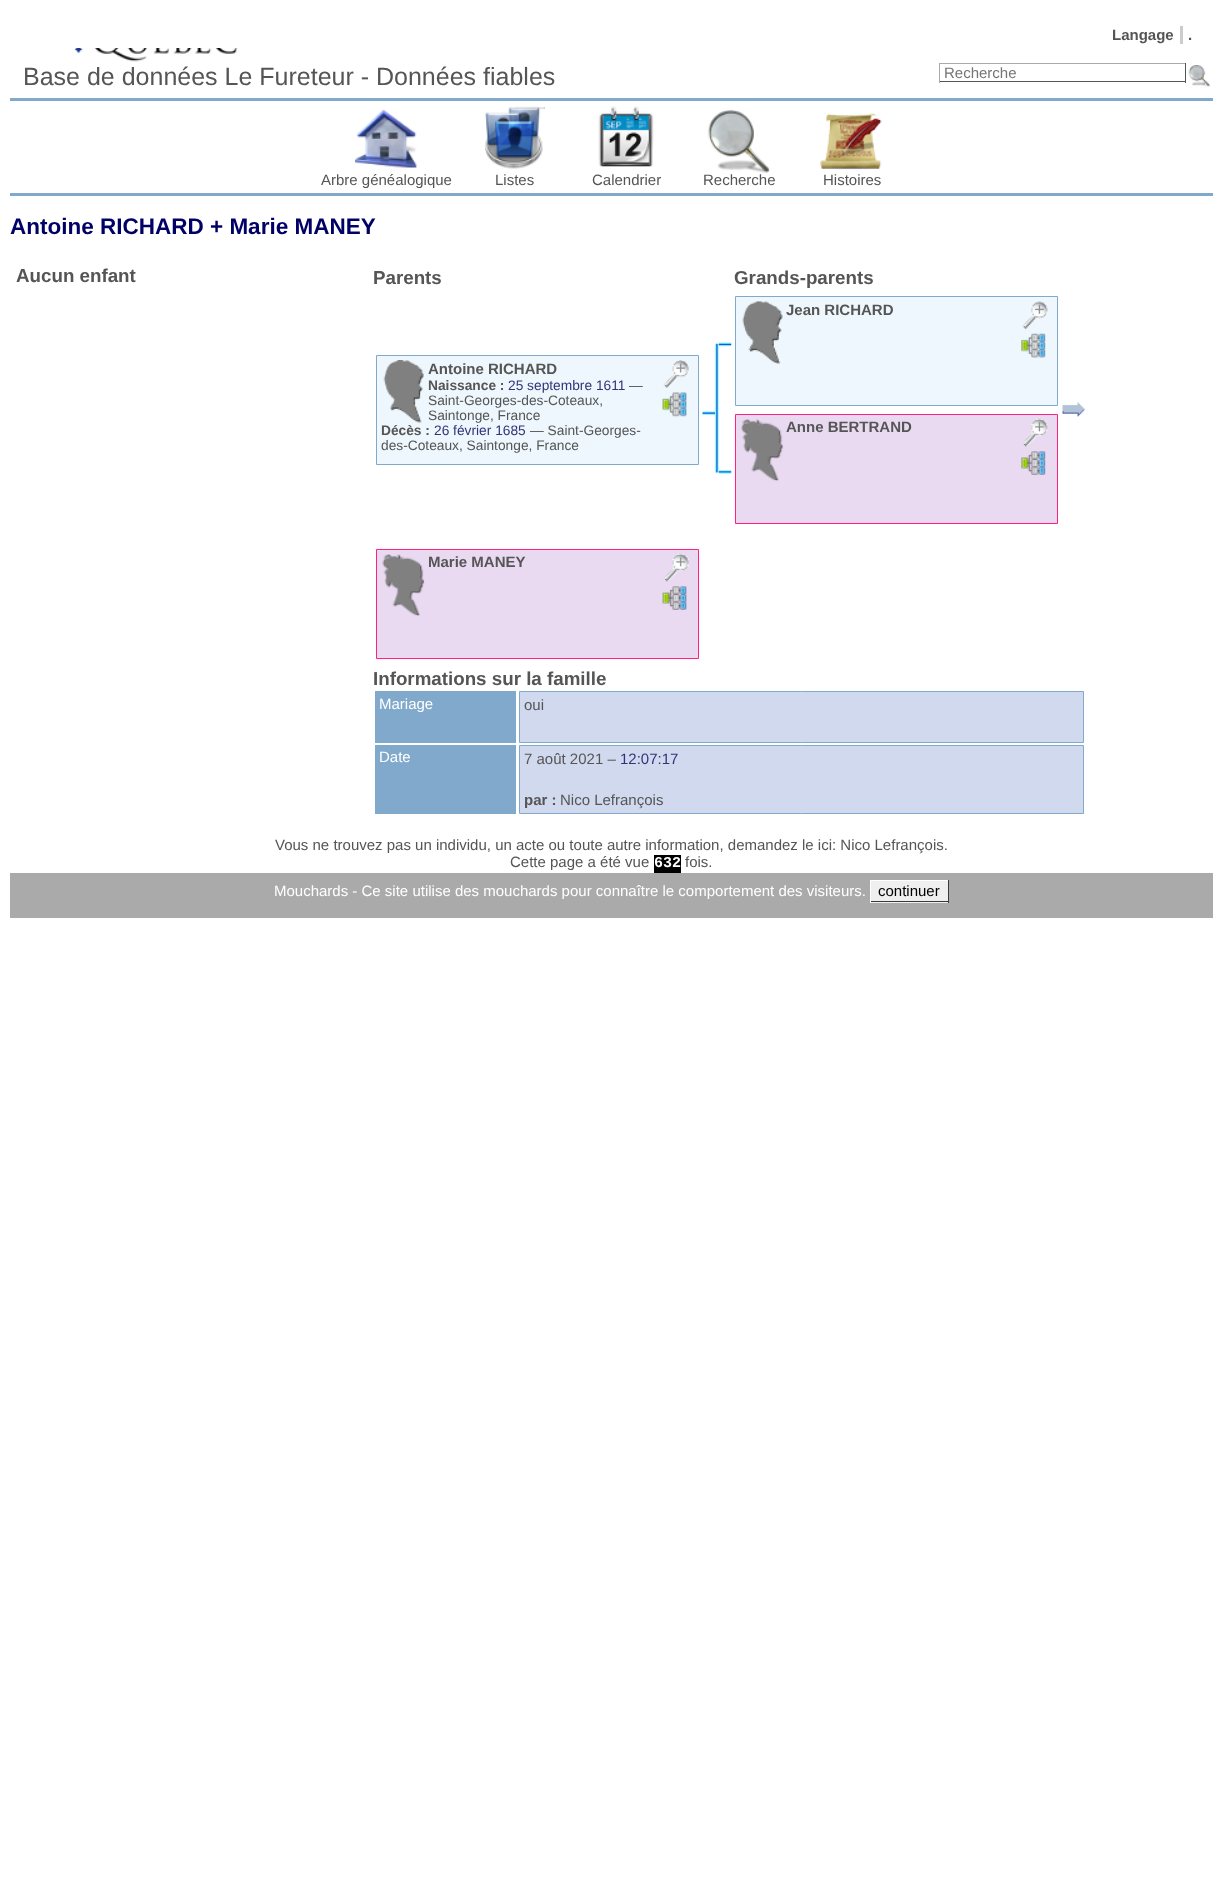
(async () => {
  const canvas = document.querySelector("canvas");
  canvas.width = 1222;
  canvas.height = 1902;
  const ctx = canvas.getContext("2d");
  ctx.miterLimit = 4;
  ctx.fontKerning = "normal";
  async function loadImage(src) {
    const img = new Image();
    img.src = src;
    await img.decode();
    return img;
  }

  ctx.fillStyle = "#ffffff";
  ctx.fillRect(0, 0, 1222, 1902);
  ctx.fillStyle = "#cccccc";
  ctx.fillRect(1180, 26, 3, 18);
  ctx.drawImage(await loadImage("img/1.png"), 74, 48, 164, 14);
  for (const [x, y, w, h, color] of [
    [939, 63, 247, 1, "#aaaaaa"],
    [1185, 63, 1, 20, "#555555"],
    [939, 81, 247, 1, "#555555"],
    [939, 63, 1, 20, "#aaaaaa"],
  ]) {
    ctx.fillStyle = color;
    ctx.fillRect(x, y, w, h);
  }
  ctx.drawImage(await loadImage("img/2.png"), 1188, 65, 22, 22);
  ctx.fillStyle = "#81a9cb";
  ctx.fillRect(10, 98, 1203, 3);
  ctx.fillRect(10, 193, 1203, 3);
  ctx.drawImage(await loadImage("img/3.png"), 355, 109, 63, 59);
  ctx.drawImage(await loadImage("img/4.png"), 485, 106, 60, 63);
  ctx.drawImage(await loadImage("img/5.png"), 598, 106, 56, 61);
  ctx.drawImage(await loadImage("img/6.png"), 707, 109, 63, 64);
  ctx.drawImage(await loadImage("img/7.png"), 820, 113, 62, 57);
  ctx.fillStyle = "#edf7fd";
  ctx.beginPath();
  ctx.rect(735.5, 296.5, 322, 109);
  ctx.fill();
  ctx.strokeStyle = "#81a9cb";
  ctx.stroke();
  ctx.drawImage(await loadImage("img/8.png"), 742, 301, 41, 63);
  ctx.drawImage(await loadImage("img/9.png"), 1022, 301, 26, 28);
  ctx.drawImage(await loadImage("img/10.png"), 1021, 333, 25, 25);
  ctx.beginPath();
  ctx.rect(376.5, 355.5, 322, 109);
  ctx.fill();
  ctx.stroke();
  ctx.drawImage(await loadImage("img/11.png"), 383, 360, 41, 63);
  ctx.drawImage(await loadImage("img/12.png"), 663, 360, 26, 28);
  ctx.drawImage(await loadImage("img/13.png"), 662, 392, 25, 25);
  ctx.drawImage(await loadImage("img/14.png"), 702, 411, 13, 4);
  ctx.drawImage(await loadImage("img/15.png"), 715, 343, 4, 130);
  ctx.drawImage(await loadImage("img/16.png"), 718, 342, 14, 5);
  ctx.drawImage(await loadImage("img/17.png"), 1062, 402, 24, 15);
  ctx.fillStyle = "#e9daf1";
  ctx.beginPath();
  ctx.rect(735.5, 414.5, 322, 109);
  ctx.fill();
  ctx.strokeStyle = "#ff2080";
  ctx.stroke();
  ctx.drawImage(await loadImage("img/18.png"), 741, 419, 43, 62);
  ctx.drawImage(await loadImage("img/19.png"), 1022, 418, 26, 29);
  ctx.drawImage(await loadImage("img/20.png"), 1021, 451, 25, 24);
  ctx.drawImage(await loadImage("img/21.png"), 718, 470, 14, 4);
  ctx.beginPath();
  ctx.rect(376.5, 549.5, 322, 109);
  ctx.fill();
  ctx.stroke();
  ctx.drawImage(await loadImage("img/22.png"), 382, 554, 43, 62);
  ctx.drawImage(await loadImage("img/23.png"), 664, 553, 25, 29);
  ctx.drawImage(await loadImage("img/24.png"), 662, 586, 25, 24);
  ctx.fillStyle = "#81a9cb";
  ctx.fillRect(375, 691, 141, 52);
  ctx.fillStyle = "#d1d9ef";
  ctx.beginPath();
  ctx.rect(519.5, 691.5, 564, 51);
  ctx.fill();
  ctx.strokeStyle = "#81a9cb";
  ctx.stroke();
  ctx.fillStyle = "#81a9cb";
  ctx.fillRect(375, 745, 141, 69);
  ctx.fillStyle = "#d1d9ef";
  ctx.beginPath();
  ctx.rect(519.5, 745.5, 564, 68);
  ctx.fill();
  ctx.stroke();
  for (const [x, y, w, h, color] of [
    [654, 855, 27, 18, "#000000"],
    [10, 873, 1203, 45, "#aaaaaa"],
    [871, 881, 77, 22, "#efefef"],
    [870, 880, 79, 1, "#ffffff"],
    [948, 880, 1, 23, "#393939"],
    [870, 901, 79, 1, "#393939"],
    [870, 880, 1, 23, "#ffffff"],
  ]) {
    ctx.fillStyle = color;
    ctx.fillRect(x, y, w, h);
  }
  ctx.font = "bold 15px Liberation Sans";
  ctx.fillStyle = "#555555";
  ctx.fillText("Langage", 1112, 40);
  ctx.fillText(".", 1188, 40);
  ctx.font = "25px Liberation Sans";
  ctx.fillText("Base de données Le Fureteur - Données fiables", 23, 85);
  ctx.font = "15px Liberation Sans";
  ctx.fillStyle = "#757575";
  ctx.fillText("Recherche", 944, 78);
  ctx.fillStyle = "#555555";
  for (const [text, x, y] of [
    ["Arbre généalogique", 321, 185],
    ["Listes", 495, 185],
    ["Calendrier", 592, 185],
    ["Recherche", 703, 185],
    ["Histoires", 823, 185],
  ]) {
    ctx.fillText(text, x, y);
  }
  ctx.font = "bold 22.5px Liberation Sans";
  ctx.fillStyle = "#000066";
  ctx.fillText("Antoine RICHARD + Marie MANEY", 10, 234);
  ctx.font = "bold 18.75px Liberation Sans";
  ctx.fillStyle = "#555555";
  for (const [text, x, y] of [
    ["Aucun enfant", 16, 282],
    ["Parents", 373, 284],
    ["Grands-parents", 734, 284],
  ]) {
    ctx.fillText(text, x, y);
  }
  ctx.font = "bold 15px Liberation Sans";
  ctx.fillText("Jean RICHARD", 786, 315);
  ctx.fillText("Antoine RICHARD", 428, 374);
  ctx.font = "bold 13.75px Liberation Sans";
  ctx.fillText("Naissance :", 428, 390);
  ctx.font = "13.75px Liberation Sans";
  ctx.fillStyle = "#333377";
  ctx.fillText("25 septembre 1611", 508, 390);
  ctx.fillStyle = "#555555";
  for (const [text, x, y] of [
    ["—", 629, 390],
    ["Saint-Georges-des-Coteaux,", 428, 405],
    ["Saintonge, France", 428, 420],
  ]) {
    ctx.fillText(text, x, y);
  }
  ctx.font = "bold 13.75px Liberation Sans";
  ctx.fillText("Décès :", 381, 435);
  ctx.font = "13.75px Liberation Sans";
  ctx.fillStyle = "#333377";
  ctx.fillText("26 février 1685", 434, 435);
  ctx.fillStyle = "#555555";
  ctx.fillText("— Saint-Georges-", 530, 435);
  ctx.fillText("des-Coteaux, Saintonge, France", 381, 450);
  ctx.font = "bold 15px Liberation Sans";
  ctx.fillText("Anne BERTRAND", 786, 432);
  ctx.fillText("Marie MANEY", 428, 567);
  ctx.font = "bold 18.75px Liberation Sans";
  ctx.fillText("Informations sur la famille", 373, 685);
  ctx.font = "15px Liberation Sans";
  ctx.fillStyle = "#ffffff";
  ctx.fillText("Mariage", 379, 709);
  ctx.fillStyle = "#555555";
  ctx.fillText("oui", 524, 710);
  ctx.fillStyle = "#ffffff";
  ctx.fillText("Date", 379, 762);
  ctx.fillStyle = "#555555";
  ctx.fillText("7 août 2021 –", 524, 764);
  ctx.fillStyle = "#333377";
  ctx.fillText("12:07:17", 620, 764);
  ctx.font = "bold 15px Liberation Sans";
  ctx.fillStyle = "#555555";
  ctx.fillText("par :", 524, 805);
  ctx.font = "15px Liberation Sans";
  for (const [text, x, y] of [
    ["Nico Lefrançois", 560, 805],
    ["Vous ne trouvez pas un individu, un acte ou toute autre information, demandez le ici: Nico Lefrançois.", 275, 850],
    ["Cette page a été vue", 510, 867],
  ]) {
    ctx.fillText(text, x, y);
  }
  ctx.font = "bold 15px Liberation Mono";
  ctx.fillStyle = "#ffffff";
  ctx.fillText("632", 654, 867);
  ctx.font = "15px Liberation Sans";
  ctx.fillStyle = "#555555";
  ctx.fillText("fois.", 685, 867);
  ctx.fillStyle = "#ffffff";
  ctx.fillText("Mouchards - Ce site utilise des mouchards pour connaître le comportement des visiteurs.", 274, 896);
  ctx.fillStyle = "#000000";
  ctx.fillText("continuer", 878, 896);
})();
